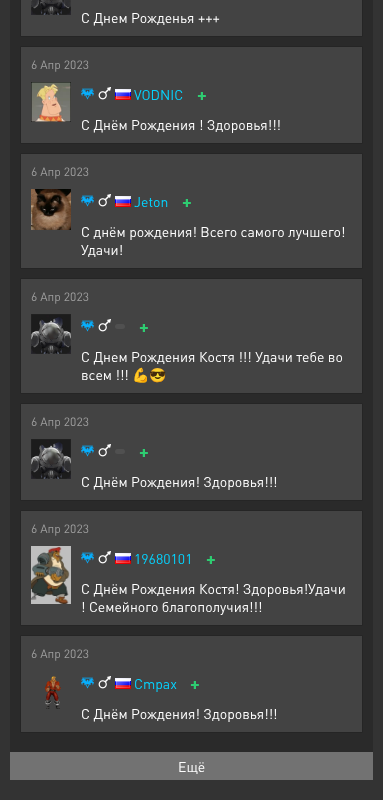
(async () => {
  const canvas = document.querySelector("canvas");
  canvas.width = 383;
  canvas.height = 800;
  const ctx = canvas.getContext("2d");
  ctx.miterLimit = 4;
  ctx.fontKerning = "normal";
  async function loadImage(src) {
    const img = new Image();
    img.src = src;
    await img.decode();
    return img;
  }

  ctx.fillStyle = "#333333";
  ctx.fillRect(0, 0, 383, 800);
  ctx.fillStyle = "#2a2a2a";
  ctx.fillRect(10, 0, 363, 752);
  ctx.fillStyle = "#434343";
  ctx.beginPath();
  ctx.rect(20.5, -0.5, 342, 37);
  ctx.fill();
  ctx.strokeStyle = "#252525";
  ctx.stroke();
  ctx.drawImage(await loadImage("img/1.png"), 31, 0, 40, 15);
  ctx.beginPath();
  ctx.rect(20.5, 46.5, 342, 97);
  ctx.fill();
  ctx.stroke();
  ctx.drawImage(await loadImage("img/2.png"), 31, 82, 40, 40);
  ctx.drawImage(await loadImage("img/3.png"), 81, 88, 13, 12);
  ctx.drawImage(await loadImage("img/4.png"), 98, 87, 13, 13);
  ctx.drawImage(await loadImage("img/5.png"), 115, 89, 16, 11);
  ctx.beginPath();
  ctx.rect(20.5, 153.5, 342, 115);
  ctx.fill();
  ctx.stroke();
  ctx.drawImage(await loadImage("img/6.png"), 31, 189, 40, 41);
  ctx.drawImage(await loadImage("img/3.png"), 81, 195, 13, 12);
  ctx.drawImage(await loadImage("img/4.png"), 98, 194, 13, 13);
  ctx.drawImage(await loadImage("img/5.png"), 115, 196, 16, 11);
  ctx.beginPath();
  ctx.rect(20.5, 278.5, 342, 115);
  ctx.fill();
  ctx.stroke();
  ctx.drawImage(await loadImage("img/7.png"), 31, 314, 40, 40);
  ctx.drawImage(await loadImage("img/3.png"), 81, 320, 13, 12);
  ctx.drawImage(await loadImage("img/4.png"), 98, 319, 13, 13);
  ctx.fillStyle = "#505050";
  ctx.beginPath();
  ctx.roundRect(115, 324, 10, 5, 2.5);
  ctx.fill();
  ctx.fillStyle = "#434343";
  ctx.beginPath();
  ctx.rect(20.5, 403.5, 342, 97);
  ctx.fill();
  ctx.stroke();
  ctx.drawImage(await loadImage("img/7.png"), 31, 439, 40, 40);
  ctx.drawImage(await loadImage("img/3.png"), 81, 445, 13, 12);
  ctx.drawImage(await loadImage("img/4.png"), 98, 444, 13, 13);
  ctx.fillStyle = "#505050";
  ctx.beginPath();
  ctx.roundRect(115, 449, 10, 5, 2.5);
  ctx.fill();
  ctx.fillStyle = "#434343";
  ctx.beginPath();
  ctx.rect(20.5, 510.5, 342, 115);
  ctx.fill();
  ctx.stroke();
  ctx.drawImage(await loadImage("img/8.png"), 31, 546, 40, 58);
  ctx.drawImage(await loadImage("img/3.png"), 81, 552, 13, 12);
  ctx.drawImage(await loadImage("img/4.png"), 98, 551, 13, 13);
  ctx.drawImage(await loadImage("img/5.png"), 115, 553, 16, 11);
  ctx.beginPath();
  ctx.rect(20.5, 635.5, 342, 97);
  ctx.fill();
  ctx.stroke();
  ctx.drawImage(await loadImage("img/9.png"), 45, 676, 16, 33);
  ctx.drawImage(await loadImage("img/3.png"), 81, 677, 13, 12);
  ctx.drawImage(await loadImage("img/4.png"), 98, 676, 13, 13);
  ctx.drawImage(await loadImage("img/5.png"), 115, 678, 16, 11);
  ctx.fillStyle = "#727272";
  ctx.fillRect(10, 752, 363, 28);
  ctx.font = "14px DIN";
  ctx.fillStyle = "#ffffff";
  ctx.fillText("С Днем Рожденья +++", 81, 23);
  ctx.font = "12px DIN";
  ctx.fillStyle = "#9e9e9e";
  ctx.fillText("6 Апр 2023", 31, 69);
  ctx.font = "14px DIN";
  ctx.fillStyle = "#05d3ff";
  ctx.fillText("VODNIC", 134, 100);
  ctx.font = "bold 18px DIN";
  ctx.fillStyle = "#2ecc71";
  ctx.fillText("+", 197, 101);
  ctx.font = "14px DIN";
  ctx.fillStyle = "#ffffff";
  ctx.fillText("С Днём Рождения ! Здоровья!!!", 81, 130);
  ctx.font = "12px DIN";
  ctx.fillStyle = "#9e9e9e";
  ctx.fillText("6 Апр 2023", 31, 176);
  ctx.font = "14px DIN";
  ctx.fillStyle = "#05d3ff";
  ctx.fillText("Jeton", 134, 207);
  ctx.font = "bold 18px DIN";
  ctx.fillStyle = "#2ecc71";
  ctx.fillText("+", 182, 208);
  ctx.font = "14px DIN";
  ctx.fillStyle = "#ffffff";
  ctx.fillText("С днём рождения! Всего самого лучшего!", 81, 237);
  ctx.fillText("Удачи!", 81, 255);
  ctx.font = "12px DIN";
  ctx.fillStyle = "#9e9e9e";
  ctx.fillText("6 Апр 2023", 31, 301);
  ctx.font = "bold 18px DIN";
  ctx.fillStyle = "#2ecc71";
  ctx.fillText("+", 139, 333);
  ctx.font = "14px DIN";
  ctx.fillStyle = "#ffffff";
  ctx.fillText("С Днем Рождения Костя !!! Удачи тебе во", 81, 362);
  ctx.fillText("всем !!!", 81, 380);
  ctx.font = "14px Noto Color Emoji";
  ctx.fillText("💪😎", 132, 380);
  ctx.font = "12px DIN";
  ctx.fillStyle = "#9e9e9e";
  ctx.fillText("6 Апр 2023", 31, 426);
  ctx.font = "bold 18px DIN";
  ctx.fillStyle = "#2ecc71";
  ctx.fillText("+", 139, 458);
  ctx.font = "14px DIN";
  ctx.fillStyle = "#ffffff";
  ctx.fillText("С Днём Рождения! Здоровья!!!", 81, 487);
  ctx.font = "12px DIN";
  ctx.fillStyle = "#9e9e9e";
  ctx.fillText("6 Апр 2023", 31, 533);
  ctx.font = "14px DIN";
  ctx.fillStyle = "#05d3ff";
  ctx.fillText("19680101", 134, 564);
  ctx.font = "bold 18px DIN";
  ctx.fillStyle = "#2ecc71";
  ctx.fillText("+", 206, 565);
  ctx.font = "14px DIN";
  ctx.fillStyle = "#ffffff";
  ctx.fillText("С Днём Рождения Костя! Здоровья!Удачи", 81, 594);
  ctx.fillText("! Семейного благополучия!!!", 81, 612);
  ctx.font = "12px DIN";
  ctx.fillStyle = "#9e9e9e";
  ctx.fillText("6 Апр 2023", 31, 658);
  ctx.font = "14px DIN";
  ctx.fillStyle = "#05d3ff";
  ctx.fillText("Cmpax", 134, 689);
  ctx.font = "bold 18px DIN";
  ctx.fillStyle = "#2ecc71";
  ctx.fillText("+", 190, 690);
  ctx.font = "14px DIN";
  ctx.fillStyle = "#ffffff";
  ctx.fillText("С Днём Рождения! Здоровья!!!", 81, 719);
  ctx.fillText("Ещё", 178, 772);
})();
